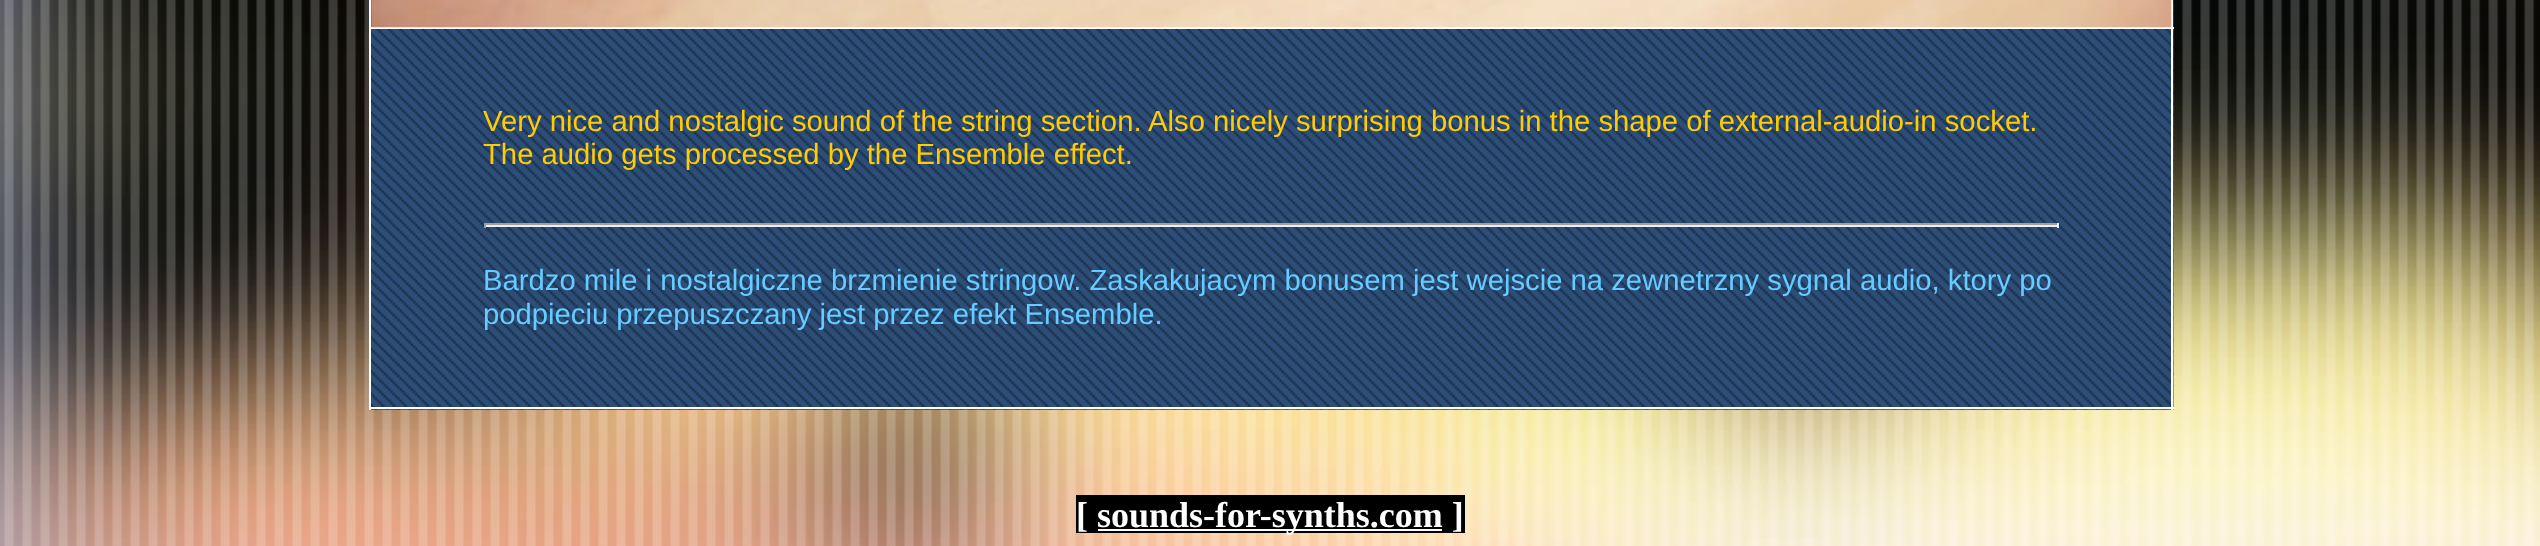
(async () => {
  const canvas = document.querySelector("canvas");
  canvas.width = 2540;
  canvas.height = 546;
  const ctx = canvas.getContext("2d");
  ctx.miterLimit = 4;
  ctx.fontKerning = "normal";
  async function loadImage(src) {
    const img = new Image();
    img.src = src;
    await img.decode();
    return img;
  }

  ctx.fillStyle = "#ffffff";
  ctx.fillRect(0, 0, 2540, 546);
  ctx.drawImage(await loadImage("img/1.png"), 0, 0, 2540, 546);
  ctx.drawImage(await loadImage("img/2.png"), 371, 0, 1803, 410);
  for (const [x, y, w, h, color] of [
    [2171, 0, 2, 410, "#ffffff"],
    [369, 407, 1805, 2, "#ffffff"],
    [369, 0, 2, 410, "#ffffff"],
    [369, 27, 1805, 2, "#ffffff"],
  ]) {
    ctx.fillStyle = color;
    ctx.fillRect(x, y, w, h);
  }
  ctx.drawImage(await loadImage("img/3.png"), 371, 0, 1801, 28);
  for (const [x, y, w, h, color] of [
    [484, 223, 1575, 2, "#9f9f9f"],
    [2057, 223, 2, 5, "#eeeeee"],
    [484, 225, 1575, 2, "#eeeeee"],
    [484, 223, 2, 5, "#9f9f9f"],
    [1076, 495, 389, 38, "#000000"],
    [1098, 529, 344, 2, "#ffffff"],
  ]) {
    ctx.fillStyle = color;
    ctx.fillRect(x, y, w, h);
  }
  ctx.font = "29.25px Liberation Sans";
  ctx.fillStyle = "#ffcc00";
  ctx.fillText("Very nice and nostalgic sound of the string section. Also nicely surprising bonus in the shape of external-audio-in socket.", 483, 131);
  ctx.fillText("The audio gets processed by the Ensemble effect.", 483, 164);
  ctx.fillStyle = "#66ccff";
  ctx.fillText("Bardzo mile i nostalgiczne brzmienie stringow. Zaskakujacym bonusem jest wejscie na zewnetrzny sygnal audio, ktory po", 483, 290);
  ctx.fillText("podpieciu przepuszczany jest przez efekt Ensemble.", 483, 324);
  ctx.font = "bold 36px Liberation Serif";
  ctx.fillStyle = "#ffffff";
  ctx.fillText("[", 1076, 527);
  ctx.fillText("sounds-for-synths.com ]", 1097, 527);
})();
